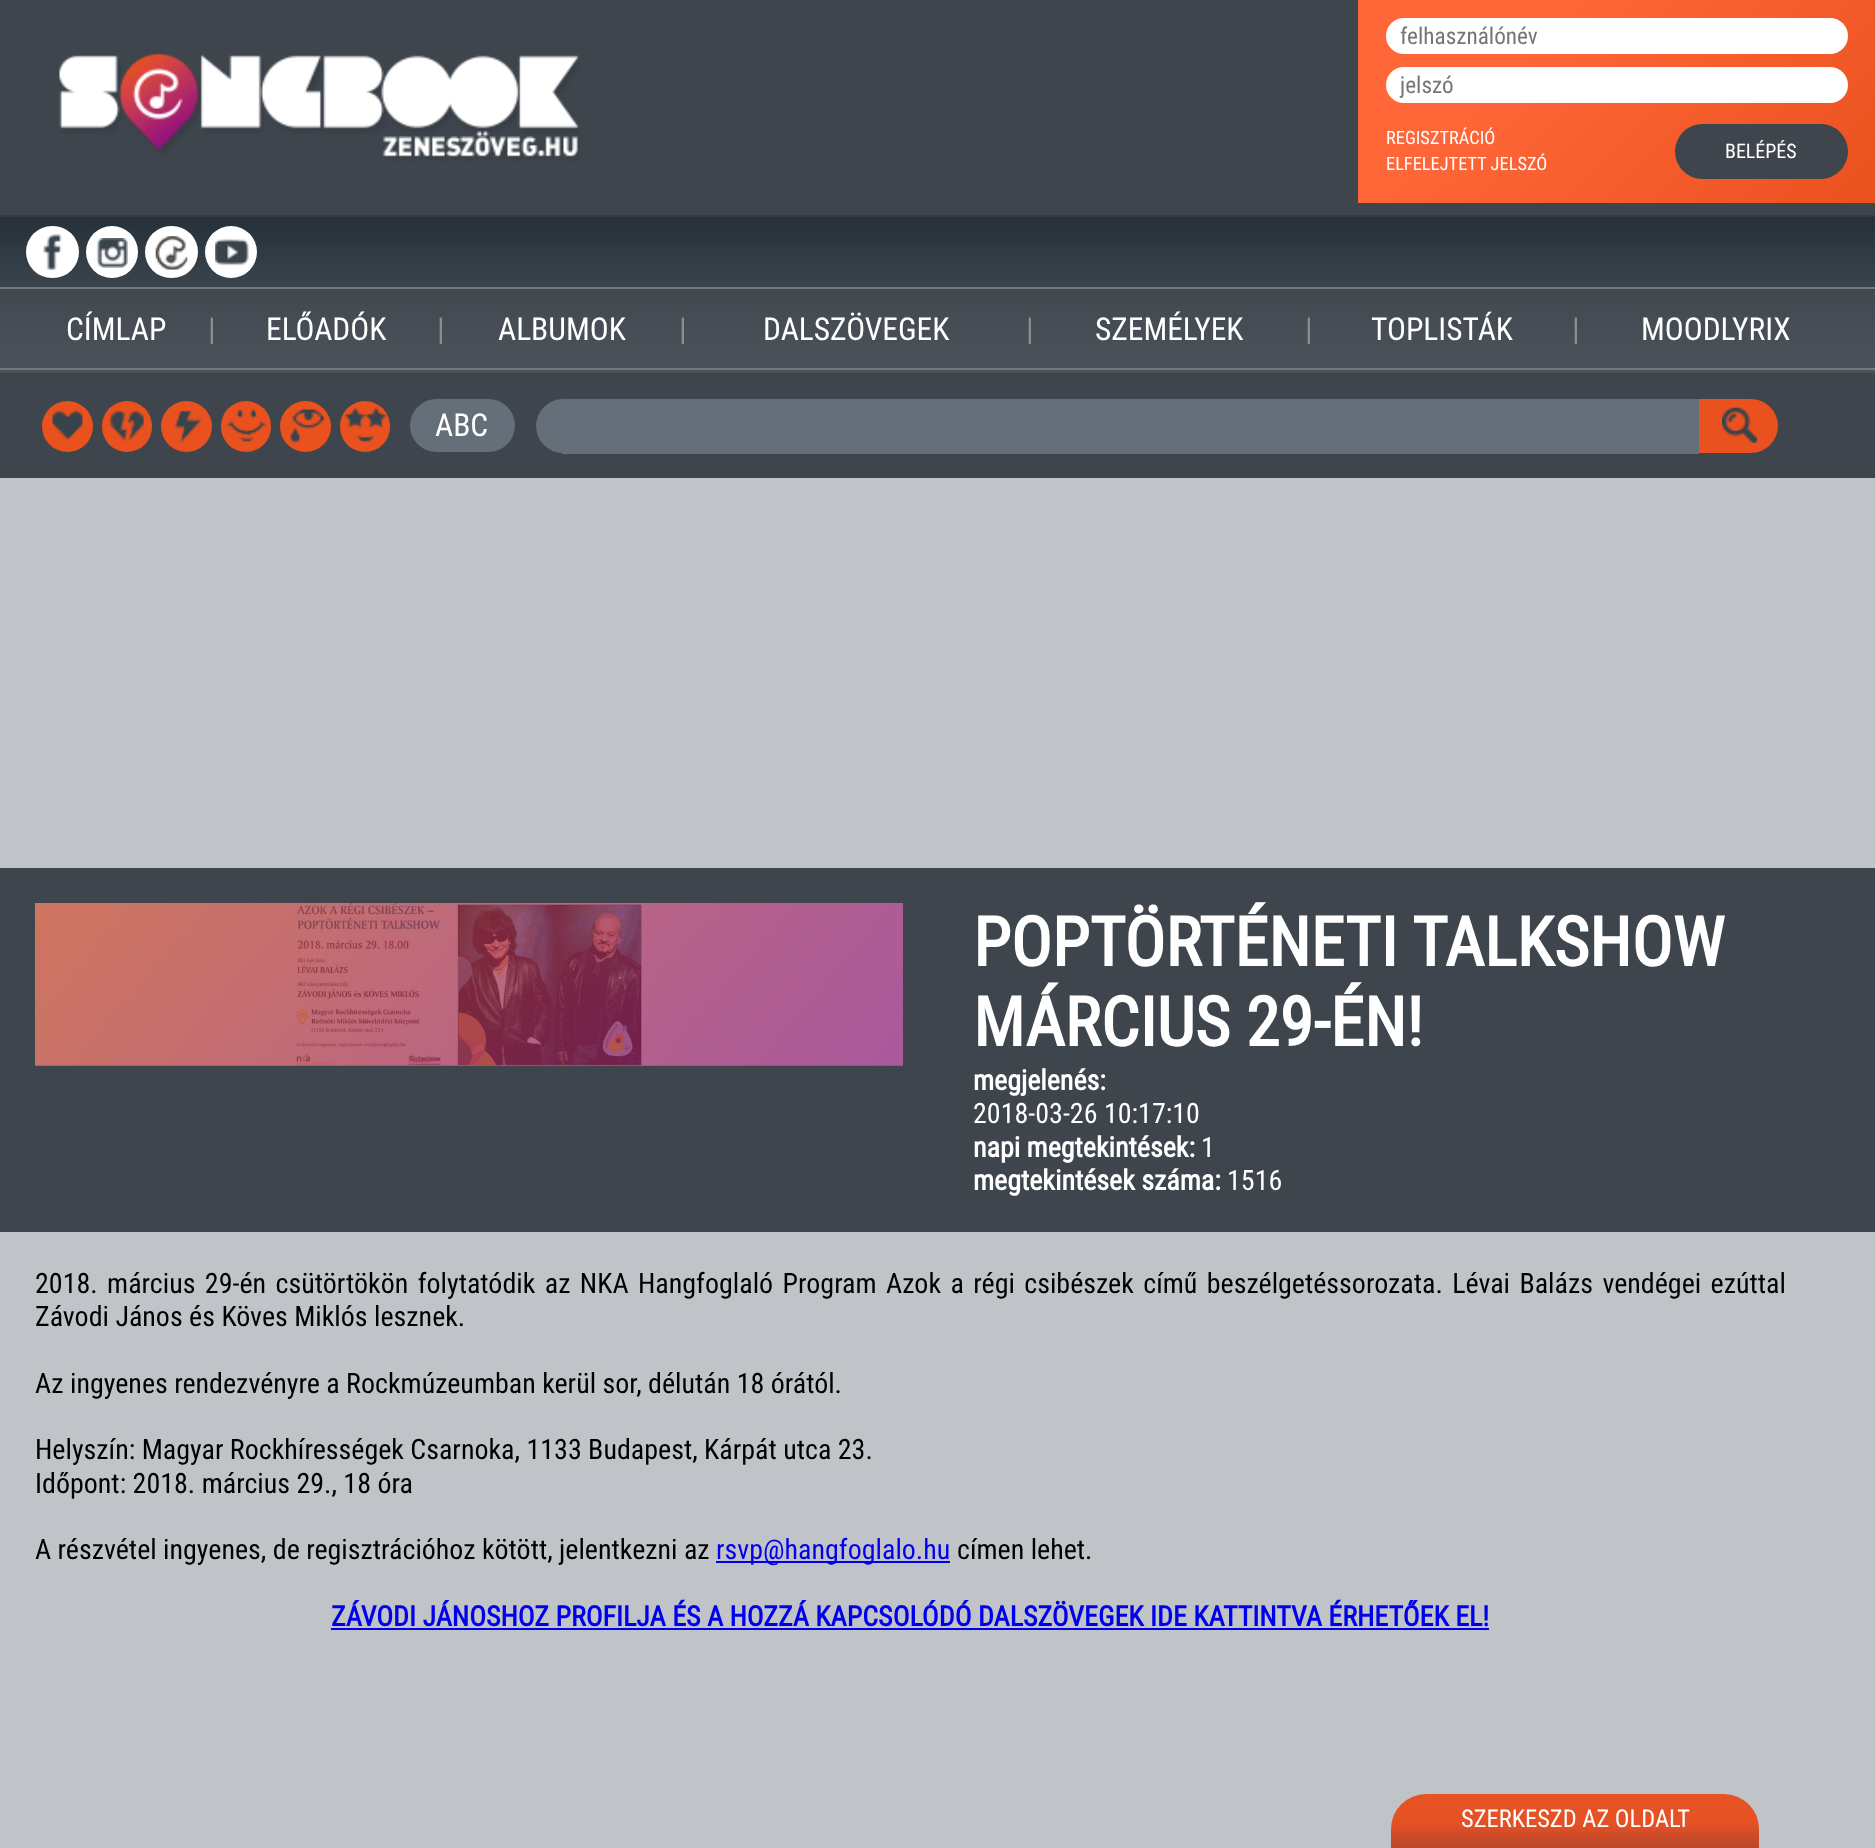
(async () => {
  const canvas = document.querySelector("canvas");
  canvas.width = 1875;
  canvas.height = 1848;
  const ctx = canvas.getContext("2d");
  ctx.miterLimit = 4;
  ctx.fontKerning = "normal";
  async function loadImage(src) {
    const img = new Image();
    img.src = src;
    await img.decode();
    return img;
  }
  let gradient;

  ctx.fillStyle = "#ffffff";
  ctx.fillRect(0, 0, 1875, 1848);
  gradient = ctx.createLinearGradient(938, 0, 938, 478);
  gradient.addColorStop(0, "#3e454d");
  gradient.addColorStop(0.55, "#3e454d");
  gradient.addColorStop(0.75, "#4a5159");
  ctx.fillStyle = gradient;
  ctx.fillRect(0, 0, 1875, 373);
  ctx.drawImage(await loadImage("img/1.png"), 59, 53, 521, 108);
  gradient = ctx.createLinearGradient(1437, -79, 1797, 282);
  gradient.addColorStop(0, "#ff6739");
  gradient.addColorStop(0.29, "#ff6739");
  gradient.addColorStop(1, "#e9511e");
  ctx.fillStyle = gradient;
  ctx.fillRect(1358, 0, 517, 203);
  ctx.fillStyle = "#ffffff";
  ctx.beginPath();
  ctx.roundRect(1386, 18, 462, 36, 18);
  ctx.fill();
  ctx.beginPath();
  ctx.roundRect(1386, 67, 462, 36, 18);
  ctx.fill();
  ctx.fillStyle = "#3e454d";
  ctx.beginPath();
  ctx.roundRect(1675, 124, 173, 55, 27.5);
  ctx.fill();
  gradient = ctx.createLinearGradient(938, 217, 938, 287);
  gradient.addColorStop(0, "#263038");
  gradient.addColorStop(1, "#39444d");
  ctx.fillStyle = gradient;
  ctx.fillRect(0, 217, 1875, 70);
  ctx.fillStyle = "#353b41";
  ctx.fillRect(0, 215, 1875, 2);
  ctx.fillStyle = "#74797f";
  ctx.fillRect(0, 287, 1875, 2);
  ctx.fillStyle = "#ffffff";
  ctx.beginPath();
  ctx.roundRect(26, 226, 53, 52, 26);
  ctx.fill();
  ctx.drawImage(await loadImage("img/2.png"), 43, 234, 19, 36);
  ctx.beginPath();
  ctx.arc(112, 252, 26, 0, Math.PI * 2);
  ctx.fill();
  ctx.drawImage(await loadImage("img/3.png"), 96, 238, 32, 30);
  ctx.beginPath();
  ctx.roundRect(145, 226, 53, 52, 26);
  ctx.fill();
  ctx.drawImage(await loadImage("img/4.png"), 155, 236, 33, 34);
  ctx.beginPath();
  ctx.arc(231, 252, 26, 0, Math.PI * 2);
  ctx.fill();
  ctx.drawImage(await loadImage("img/5.png"), 215, 239, 34, 27);
  ctx.fillStyle = "#74797f";
  ctx.fillRect(0, 368, 1875, 2);
  ctx.fillStyle = "#3e454d";
  ctx.fillRect(0, 373, 1875, 105);
  ctx.fillStyle = "#e9511e";
  ctx.beginPath();
  ctx.arc(67.5, 426.5, 25.5, 0, Math.PI * 2);
  ctx.fill();
  ctx.drawImage(await loadImage("img/6.png"), 52, 410, 31, 30);
  ctx.beginPath();
  ctx.roundRect(102, 401, 50, 51, 25);
  ctx.fill();
  ctx.drawImage(await loadImage("img/7.png"), 109, 410, 35, 32);
  ctx.beginPath();
  ctx.arc(186.5, 426.5, 25.5, 0, Math.PI * 2);
  ctx.fill();
  ctx.drawImage(await loadImage("img/8.png"), 174, 410, 28, 33);
  ctx.beginPath();
  ctx.roundRect(221, 401, 50, 51, 25);
  ctx.fill();
  ctx.drawImage(await loadImage("img/9.png"), 227, 409, 40, 33);
  ctx.beginPath();
  ctx.arc(305.5, 426.5, 25.5, 0, Math.PI * 2);
  ctx.fill();
  ctx.drawImage(await loadImage("img/10.png"), 290, 409, 34, 35);
  ctx.beginPath();
  ctx.roundRect(340, 401, 50, 51, 25);
  ctx.fill();
  ctx.drawImage(await loadImage("img/11.png"), 344, 407, 43, 35);
  ctx.fillStyle = "#646f7a";
  ctx.beginPath();
  ctx.roundRect(410, 399, 105, 53, 26.5);
  ctx.fill();
  ctx.beginPath();
  ctx.roundRect(536, 399, 1163, 54, [27, 0, 0, 27]);
  ctx.fill();
  ctx.fillRect(562, 453, 1137, 1);
  ctx.fillStyle = "#e9511e";
  ctx.beginPath();
  ctx.roundRect(1699, 399, 79, 54, [0, 27, 27, 0]);
  ctx.fill();
  ctx.drawImage(await loadImage("img/12.png"), 1722, 407, 35, 36);
  for (const [x, y, w, h, color] of [
    [0, 478, 1875, 390, "#c0c4c8"],
    [0, 1232, 1875, 616, "#c0c4c8"],
    [0, 868, 1875, 364, "#3e454d"],
  ]) {
    ctx.fillStyle = color;
    ctx.fillRect(x, y, w, h);
  }
  ctx.drawImage(await loadImage("img/13.png"), 35, 903, 868, 163);
  ctx.fillStyle = "#0000ee";
  ctx.fillRect(716, 1561, 234, 2);
  ctx.fillRect(331, 1628, 1158, 2);
  gradient = ctx.createLinearGradient(1575, 1794, 1575, 1848);
  gradient.addColorStop(0, "#e85225");
  gradient.addColorStop(0.44, "#e75225");
  gradient.addColorStop(0.6, "#e15025");
  gradient.addColorStop(0.8, "#ca4a27");
  gradient.addColorStop(1, "#bc4727");
  ctx.fillStyle = gradient;
  ctx.beginPath();
  ctx.roundRect(1391, 1794, 368, 54, [35, 35, 0, 0]);
  ctx.fill();
  ctx.font = "23.25px Roboto Condensed";
  ctx.fillStyle = "#757575";
  ctx.fillText("felhasználónév", 1400, 44);
  ctx.fillText("jelszó", 1400, 93);
  ctx.font = "18.4px Roboto Condensed";
  ctx.fillStyle = "#ffffff";
  ctx.fillText("REGISZTRÁCIÓ", 1386, 144);
  ctx.fillText("ELFELEJTETT JELSZÓ", 1386, 170);
  ctx.font = "20px Roboto Condensed";
  ctx.fillText("BELÉPÉS", 1725, 158);
  ctx.font = "31.5px Roboto Condensed";
  ctx.fillText("CÍMLAP", 66, 340);
  ctx.fillStyle = "#8a8e93";
  ctx.fillText("|", 208, 340);
  ctx.fillStyle = "#ffffff";
  ctx.fillText("ELŐADÓK", 266, 340);
  ctx.fillStyle = "#8a8e93";
  ctx.fillText("|", 437, 340);
  ctx.fillStyle = "#ffffff";
  ctx.fillText("ALBUMOK", 498, 340);
  ctx.fillStyle = "#8a8e93";
  ctx.fillText("|", 679, 340);
  ctx.fillStyle = "#ffffff";
  ctx.fillText("DALSZÖVEGEK", 763, 340);
  ctx.fillStyle = "#8a8e93";
  ctx.fillText("|", 1026, 340);
  ctx.fillStyle = "#ffffff";
  ctx.fillText("SZEMÉLYEK", 1095, 340);
  ctx.fillStyle = "#8a8e93";
  ctx.fillText("|", 1305, 340);
  ctx.fillStyle = "#ffffff";
  ctx.fillText("TOPLISTÁK", 1371, 340);
  ctx.fillStyle = "#8a8e93";
  ctx.fillText("|", 1572, 340);
  ctx.fillStyle = "#ffffff";
  ctx.fillText("MOODLYRIX", 1641, 340);
  ctx.fillText("ABC", 435, 436);
  ctx.font = "bold 68.25px Roboto Condensed";
  ctx.fillText("POPTÖRTÉNETI TALKSHOW", 973, 966);
  ctx.fillText("MÁRCIUS 29-ÉN!", 973, 1046);
  ctx.font = "bold 28px Roboto Condensed";
  ctx.fillText("megjelenés:", 973, 1090);
  ctx.font = "28px Roboto Condensed";
  ctx.fillText("2018-03-26 10:17:10", 973, 1123);
  ctx.font = "bold 28px Roboto Condensed";
  ctx.fillText("napi megtekintések:", 973, 1157);
  ctx.font = "28px Roboto Condensed";
  ctx.fillText("1", 1201, 1157);
  ctx.font = "bold 28px Roboto Condensed";
  ctx.fillText("megtekintések száma:", 973, 1190);
  ctx.font = "28px Roboto Condensed";
  ctx.fillText("1516", 1227, 1190);
  ctx.wordSpacing = "3px";
  ctx.fillStyle = "#000000";
  ctx.fillText("2018. március 29-én csütörtökön folytatódik az NKA Hangfoglaló Program Azok a régi csibészek című beszélgetéssorozata. Lévai Balázs vendégei ezúttal", 35, 1293);
  ctx.wordSpacing = "0px";
  for (const [text, x, y] of [
    ["Závodi János és Köves Miklós lesznek.", 35, 1326],
    ["Az ingyenes rendezvényre a Rockmúzeumban kerül sor, délután 18 órától.", 35, 1393],
    ["Helyszín: Magyar Rockhírességek Csarnoka, 1133 Budapest, Kárpát utca 23.", 35, 1459],
    ["Időpont: 2018. március 29., 18 óra", 35, 1493],
    ["A részvétel ingyenes, de regisztrációhoz kötött, jelentkezni az", 35, 1559],
  ]) {
    ctx.fillText(text, x, y);
  }
  ctx.fillStyle = "#0000ee";
  ctx.fillText("rsvp@hangfoglalo.hu", 716, 1559);
  ctx.fillStyle = "#000000";
  ctx.fillText("címen lehet.", 957, 1559);
  ctx.font = "bold 28px Roboto Condensed";
  ctx.fillStyle = "#0000ee";
  ctx.fillText("ZÁVODI JÁNOSHOZ PROFILJA ÉS A HOZZÁ KAPCSOLÓDÓ DALSZÖVEGEK IDE KATTINTVA ÉRHETŐEK EL!", 331, 1626);
  ctx.font = "24.5px Roboto Condensed";
  ctx.fillStyle = "#ffffff";
  ctx.fillText("SZERKESZD AZ OLDALT", 1461, 1827);
})();
